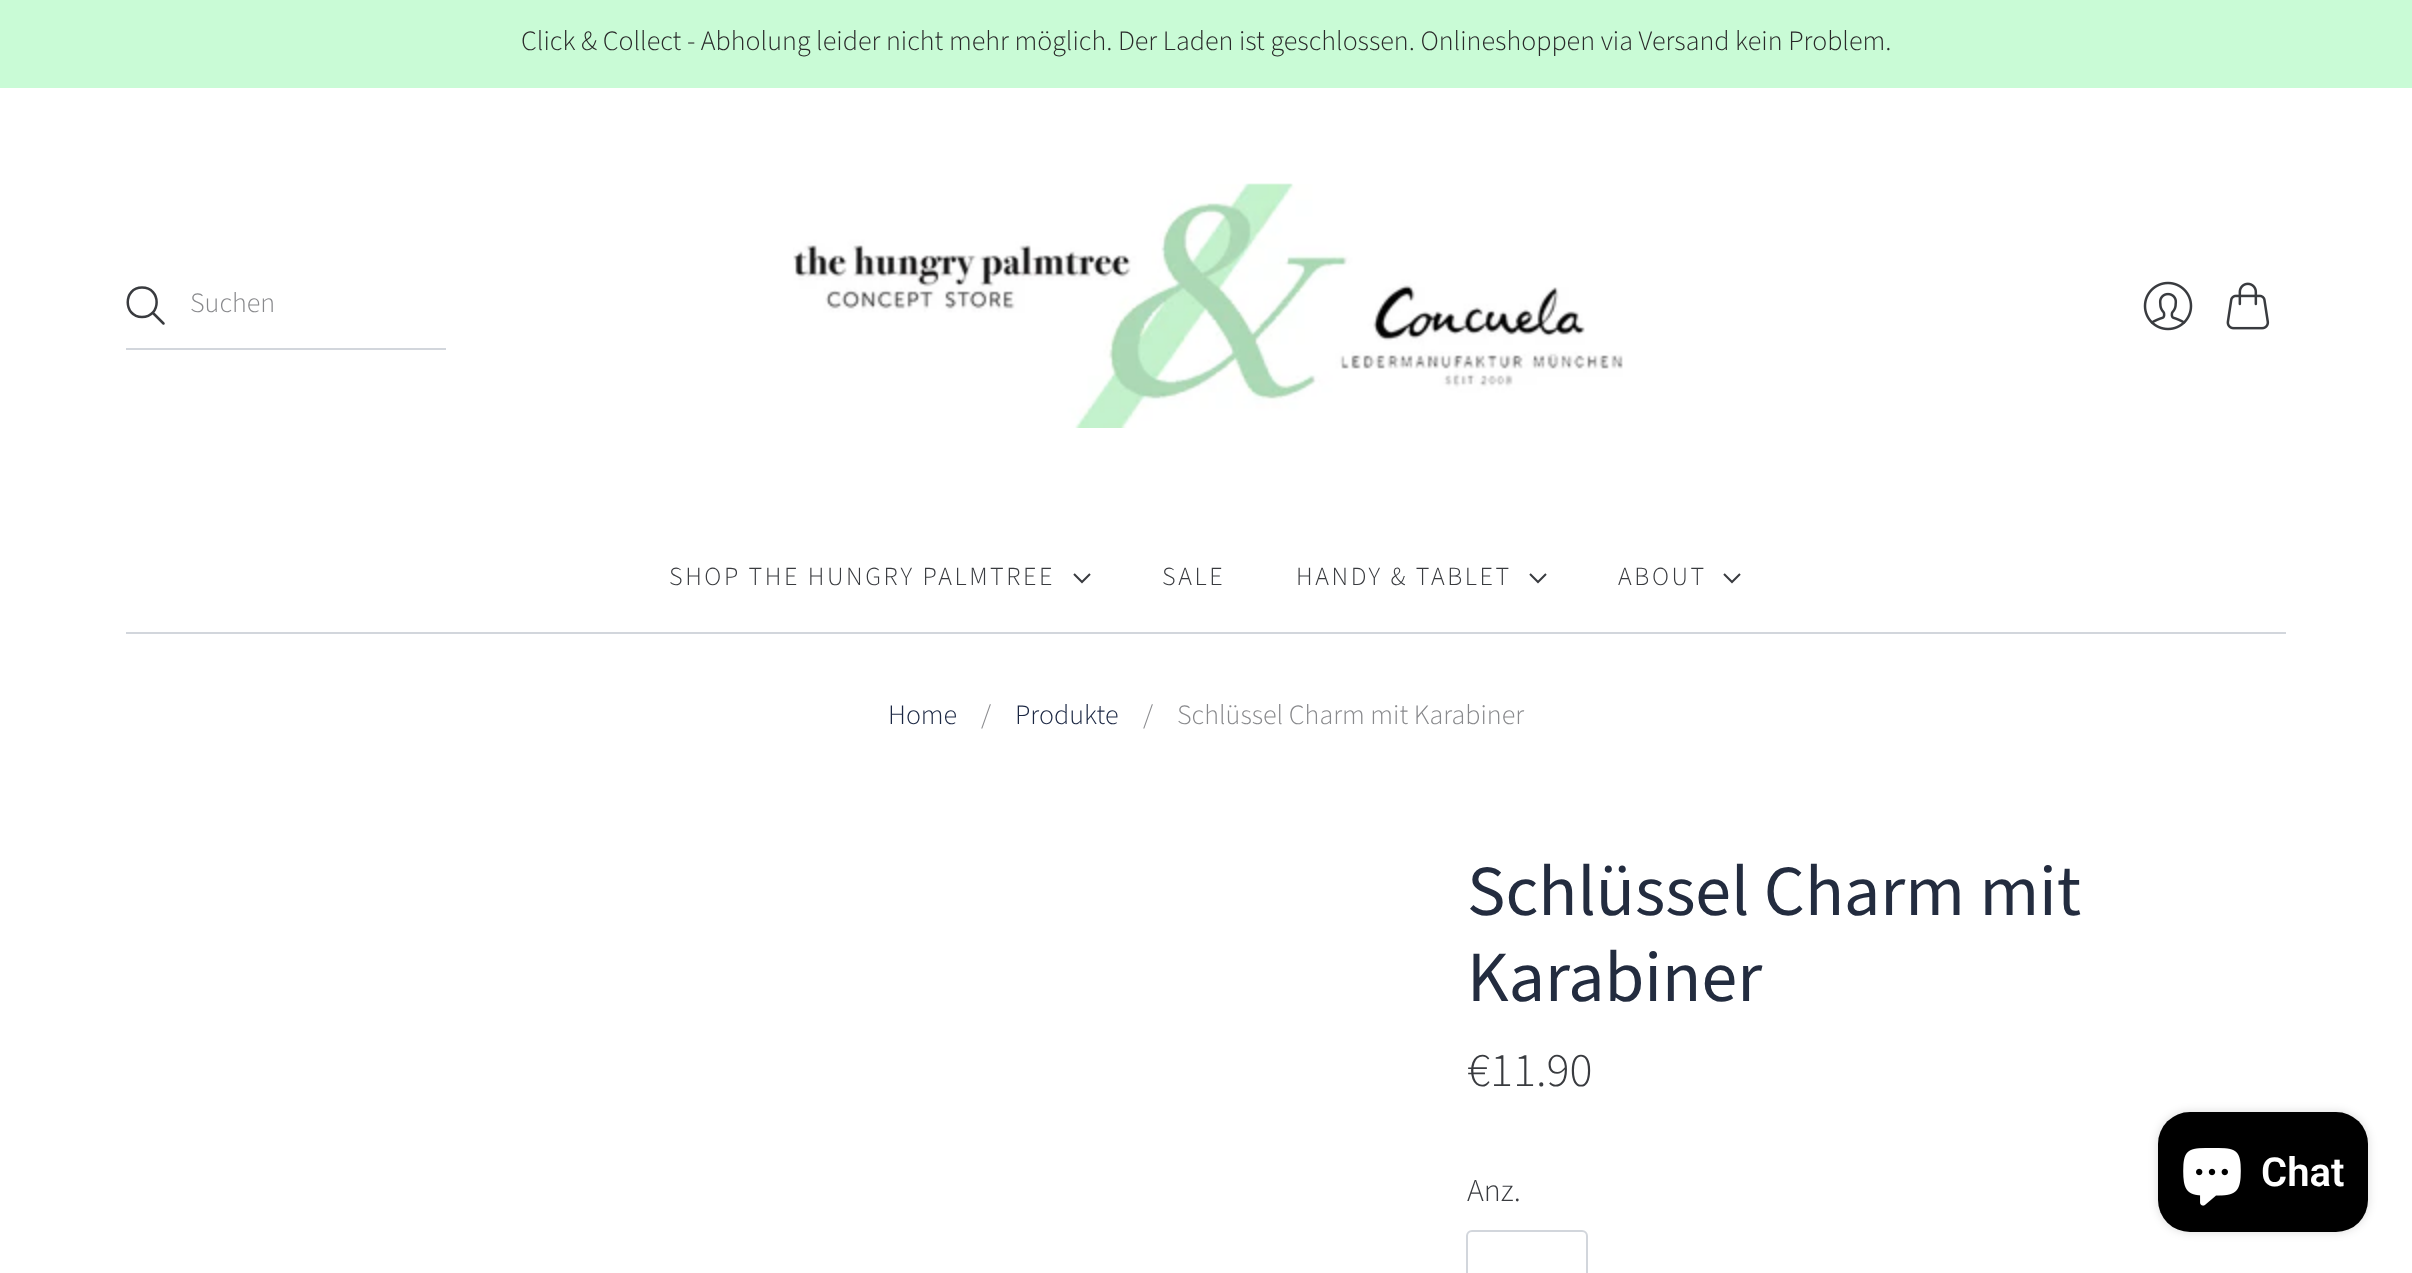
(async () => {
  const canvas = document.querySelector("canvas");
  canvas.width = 2412;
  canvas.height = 1273;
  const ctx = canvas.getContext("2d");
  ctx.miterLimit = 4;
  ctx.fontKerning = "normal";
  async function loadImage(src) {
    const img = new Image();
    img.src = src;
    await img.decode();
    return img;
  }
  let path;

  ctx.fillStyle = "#ffffff";
  ctx.fillRect(0, 0, 2412, 1273);
  ctx.fillStyle = "#c9fbd6";
  ctx.fillRect(0, 0, 2412, 88);
  path = new Path2D("M142 317C161.5 317 161.5 287.5 142 287.5C123 287.5 123 317 142 317ZM163.5 323.5L153 313");
  ctx.strokeStyle = "#393b3f";
  ctx.lineWidth = 2.5;
  ctx.lineCap = "round";
  ctx.lineJoin = "round";
  ctx.stroke(path);
  ctx.fillStyle = "#d2d6dc";
  ctx.fillRect(126, 348, 320, 2);
  ctx.drawImage(await loadImage("img/1.png"), 2143, 281, 50, 50);
  ctx.drawImage(await loadImage("img/2.png"), 2226, 282, 44, 48);
  ctx.fillRect(126, 632, 2160, 2);
  ctx.drawImage(await loadImage("img/3.png"), 793, 183, 830, 245);
  path = new Path2D("M1074 574L1082 582L1090 574");
  ctx.lineWidth = 2;
  ctx.lineCap = "butt";
  ctx.lineJoin = "miter";
  ctx.stroke(path);
  path = new Path2D("M1530 574L1538 582L1546 574");
  ctx.stroke(path);
  path = new Path2D("M1724 574L1732 582L1740 574");
  ctx.stroke(path);
  ctx.beginPath();
  ctx.roundRect(1467, 1231, 120, 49, 5);
  ctx.strokeStyle = "#d2d6dc";
  ctx.stroke();
  ctx.fillStyle = "rgba(0, 0, 0, 0.15)";
  ctx.filter = "blur(5px)";
  ctx.beginPath();
  ctx.roundRect(2158, 1112, 210, 120, 32);
  ctx.fill();
  ctx.filter = "none";
  ctx.fillStyle = "#000000";
  ctx.beginPath();
  ctx.roundRect(2158, 1112, 210, 120, 32);
  ctx.fill();
  ctx.drawImage(await loadImage("img/4.png"), 2183, 1148, 58, 58);
  ctx.font = "300 28px Source Sans Pro";
  ctx.fillStyle = "#292929";
  ctx.fillText("Click & Collect - Abholung leider nicht mehr möglich. Der Laden ist geschlossen. Onlineshoppen via Versand kein Problem.", 521, 50);
  ctx.fillStyle = "#88898c";
  ctx.fillText("Suchen", 190, 312);
  ctx.letterSpacing = "2.6px";
  ctx.font = "300 26px Source Sans Pro";
  ctx.fillStyle = "#393b3f";
  for (const [text, x, y] of [
    ["SHOP THE HUNGRY PALMTREE", 669, 585],
    ["SALE", 1162, 585],
    ["HANDY & TABLET", 1296, 585],
    ["ABOUT", 1618, 585],
  ]) {
    ctx.fillText(text, x, y);
  }
  ctx.letterSpacing = "0px";
  ctx.font = "300 28px Source Sans Pro";
  ctx.fillStyle = "#1a2642";
  ctx.fillText("Home", 888, 724);
  ctx.fillStyle = "#88898c";
  ctx.fillText("/", 981, 724);
  ctx.fillStyle = "#1a2642";
  ctx.fillText("Produkte", 1015, 724);
  ctx.fillStyle = "#88898c";
  ctx.fillText("/", 1143, 724);
  ctx.fillText("Schlüssel Charm mit Karabiner", 1177, 724);
  ctx.font = "72px Source Sans Pro";
  ctx.fillStyle = "#232c3f";
  ctx.fillText("Schlüssel Charm mit", 1467, 915);
  ctx.fillText("Karabiner", 1467, 1001);
  ctx.font = "300 48px Source Sans Pro";
  ctx.fillStyle = "#393b3f";
  ctx.fillText("€11.90", 1467, 1086);
  ctx.font = "300 32px Source Sans Pro";
  ctx.fillText("Anz.", 1467, 1201);
  ctx.font = "600 40px Roboto";
  ctx.fillStyle = "#ffffff";
  ctx.fillText("Chat", 2261, 1186);
})();
